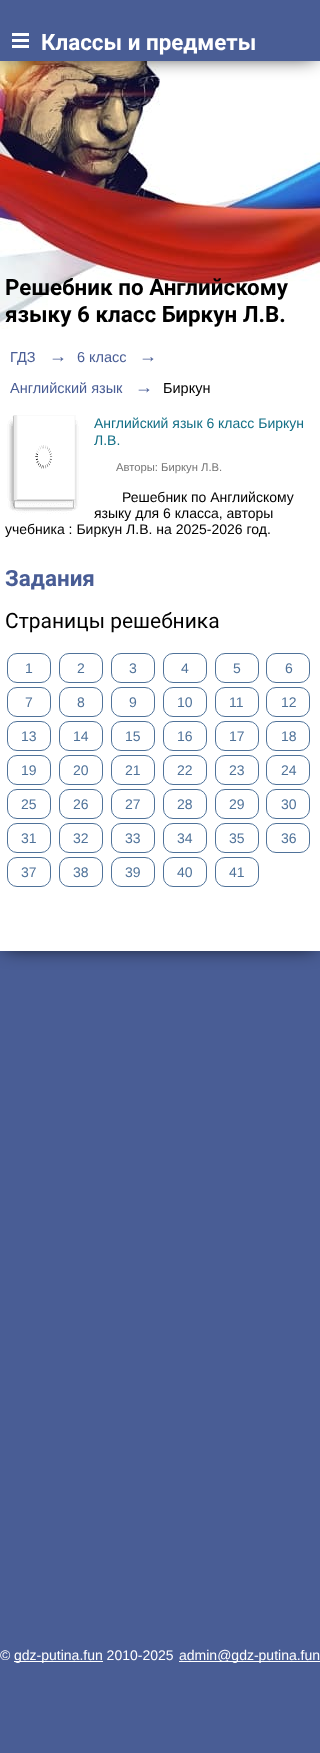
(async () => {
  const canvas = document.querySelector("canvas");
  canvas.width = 320;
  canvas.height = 1753;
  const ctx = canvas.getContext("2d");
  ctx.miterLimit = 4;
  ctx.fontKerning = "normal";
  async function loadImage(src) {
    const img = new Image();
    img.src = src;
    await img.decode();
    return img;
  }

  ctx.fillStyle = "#495d95";
  ctx.fillRect(0, 0, 320, 1753);
  ctx.fillStyle = "#000000";
  ctx.filter = "blur(10px)";
  ctx.beginPath();
  ctx.rect(5, 5, 310, 941);
  ctx.fill();
  ctx.filter = "none";
  ctx.drawImage(await loadImage("img/1.png"), 0, 61, 320, 268);
  ctx.filter = "blur(10px)";
  ctx.beginPath();
  ctx.rect(5, 5, 310, 51);
  ctx.fill();
  ctx.filter = "none";
  for (const [x, y, w, h, color] of [
    [0, 0, 320, 61, "#495d95"],
    [12, 39, 17, 3, "#ffffff"],
    [12, 33, 17, 3, "#ffffff"],
    [12, 45, 17, 3, "#ffffff"],
    [0, 329, 320, 622, "#ffffff"],
  ]) {
    ctx.fillStyle = color;
    ctx.fillRect(x, y, w, h);
  }
  ctx.drawImage(await loadImage("img/2.png"), 7, 415, 72, 100);
  ctx.drawImage(await loadImage("img/3.png"), 35, 445, 18, 24);
  ctx.beginPath();
  ctx.roundRect(7.5, 653.5, 43, 29, 9.5);
  ctx.strokeStyle = "#4f7299";
  ctx.stroke();
  ctx.beginPath();
  ctx.roundRect(59.5, 653.5, 43, 29, 9.5);
  ctx.stroke();
  ctx.beginPath();
  ctx.roundRect(111.5, 653.5, 43, 29, 9.5);
  ctx.stroke();
  ctx.beginPath();
  ctx.roundRect(163.5, 653.5, 43, 29, 9.5);
  ctx.stroke();
  ctx.beginPath();
  ctx.roundRect(215.5, 653.5, 43, 29, 9.5);
  ctx.stroke();
  ctx.beginPath();
  ctx.roundRect(266.5, 653.5, 43, 29, 9.5);
  ctx.stroke();
  ctx.beginPath();
  ctx.roundRect(7.5, 687.5, 43, 29, 9.5);
  ctx.stroke();
  ctx.beginPath();
  ctx.roundRect(59.5, 687.5, 43, 29, 9.5);
  ctx.stroke();
  ctx.beginPath();
  ctx.roundRect(111.5, 687.5, 43, 29, 9.5);
  ctx.stroke();
  ctx.beginPath();
  ctx.roundRect(163.5, 687.5, 43, 29, 9.5);
  ctx.stroke();
  ctx.beginPath();
  ctx.roundRect(215.5, 687.5, 43, 29, 9.5);
  ctx.stroke();
  ctx.beginPath();
  ctx.roundRect(266.5, 687.5, 43, 29, 9.5);
  ctx.stroke();
  ctx.beginPath();
  ctx.roundRect(7.5, 721.5, 43, 29, 9.5);
  ctx.stroke();
  ctx.beginPath();
  ctx.roundRect(59.5, 721.5, 43, 29, 9.5);
  ctx.stroke();
  ctx.beginPath();
  ctx.roundRect(111.5, 721.5, 43, 29, 9.5);
  ctx.stroke();
  ctx.beginPath();
  ctx.roundRect(163.5, 721.5, 43, 29, 9.5);
  ctx.stroke();
  ctx.beginPath();
  ctx.roundRect(215.5, 721.5, 43, 29, 9.5);
  ctx.stroke();
  ctx.beginPath();
  ctx.roundRect(266.5, 721.5, 43, 29, 9.5);
  ctx.stroke();
  ctx.beginPath();
  ctx.roundRect(7.5, 755.5, 43, 29, 9.5);
  ctx.stroke();
  ctx.beginPath();
  ctx.roundRect(59.5, 755.5, 43, 29, 9.5);
  ctx.stroke();
  ctx.beginPath();
  ctx.roundRect(111.5, 755.5, 43, 29, 9.5);
  ctx.stroke();
  ctx.beginPath();
  ctx.roundRect(163.5, 755.5, 43, 29, 9.5);
  ctx.stroke();
  ctx.beginPath();
  ctx.roundRect(215.5, 755.5, 43, 29, 9.5);
  ctx.stroke();
  ctx.beginPath();
  ctx.roundRect(266.5, 755.5, 43, 29, 9.5);
  ctx.stroke();
  ctx.beginPath();
  ctx.roundRect(7.5, 789.5, 43, 29, 9.5);
  ctx.stroke();
  ctx.beginPath();
  ctx.roundRect(59.5, 789.5, 43, 29, 9.5);
  ctx.stroke();
  ctx.beginPath();
  ctx.roundRect(111.5, 789.5, 43, 29, 9.5);
  ctx.stroke();
  ctx.beginPath();
  ctx.roundRect(163.5, 789.5, 43, 29, 9.5);
  ctx.stroke();
  ctx.beginPath();
  ctx.roundRect(215.5, 789.5, 43, 29, 9.5);
  ctx.stroke();
  ctx.beginPath();
  ctx.roundRect(266.5, 789.5, 43, 29, 9.5);
  ctx.stroke();
  ctx.beginPath();
  ctx.roundRect(7.5, 823.5, 43, 29, 9.5);
  ctx.stroke();
  ctx.beginPath();
  ctx.roundRect(59.5, 823.5, 43, 29, 9.5);
  ctx.stroke();
  ctx.beginPath();
  ctx.roundRect(111.5, 823.5, 43, 29, 9.5);
  ctx.stroke();
  ctx.beginPath();
  ctx.roundRect(163.5, 823.5, 43, 29, 9.5);
  ctx.stroke();
  ctx.beginPath();
  ctx.roundRect(215.5, 823.5, 43, 29, 9.5);
  ctx.stroke();
  ctx.beginPath();
  ctx.roundRect(266.5, 823.5, 43, 29, 9.5);
  ctx.stroke();
  ctx.beginPath();
  ctx.roundRect(7.5, 857.5, 43, 29, 9.5);
  ctx.stroke();
  ctx.beginPath();
  ctx.roundRect(59.5, 857.5, 43, 29, 9.5);
  ctx.stroke();
  ctx.beginPath();
  ctx.roundRect(111.5, 857.5, 43, 29, 9.5);
  ctx.stroke();
  ctx.beginPath();
  ctx.roundRect(163.5, 857.5, 43, 29, 9.5);
  ctx.stroke();
  ctx.beginPath();
  ctx.roundRect(215.5, 857.5, 43, 29, 9.5);
  ctx.stroke();
  ctx.fillRect(14, 1661, 89, 1);
  ctx.fillRect(179, 1661, 141, 1);
  ctx.font = "bold 22.4px Roboto";
  ctx.fillText("Классы и предметы", 41, 50);
  ctx.fillStyle = "#000000";
  ctx.fillText("Решебник по Английскому", 5, 295);
  ctx.fillText("языку 6 класс Биркун Л.В.", 5, 322);
  ctx.font = "14.5px Liberation Sans";
  ctx.fillStyle = "#495d95";
  ctx.fillText("ГДЗ", 10, 362);
  ctx.font = "18px Liberation Sans";
  ctx.fillText("→", 49, 362);
  ctx.font = "14.5px Liberation Sans";
  ctx.fillText("6 класс", 77, 362);
  ctx.font = "18px Liberation Sans";
  ctx.fillText("→", 139, 362);
  ctx.font = "14.5px Liberation Sans";
  ctx.fillText("Английский язык", 10, 393);
  ctx.font = "18px Liberation Sans";
  ctx.fillText("→", 135, 393);
  ctx.font = "14.5px Liberation Sans";
  ctx.fillStyle = "#000000";
  ctx.fillText("Биркун", 163, 393);
  ctx.font = "14px Liberation Sans";
  ctx.fillStyle = "#136f86";
  ctx.fillText("Английский язык 6 класс Биркун", 94, 428);
  ctx.fillText("Л.В.", 94, 445);
  ctx.font = "11.25px Liberation Sans";
  ctx.fillStyle = "#777777";
  ctx.fillText("Авторы: Биркун Л.В.", 116, 471);
  ctx.font = "14px Liberation Sans";
  ctx.fillStyle = "#000000";
  for (const [text, x, y] of [
    ["Решебник по Английскому", 122, 502],
    ["языку для 6 класса, авторы", 94, 518],
    ["учебника : Биркун Л.В. на 2025-2026 год.", 5, 534],
  ]) {
    ctx.fillText(text, x, y);
  }
  ctx.font = "bold 22.4px Roboto";
  ctx.fillStyle = "#495d95";
  ctx.fillText("Задания", 5, 586);
  ctx.font = "21px Roboto";
  ctx.fillStyle = "#000000";
  ctx.fillText("Страницы решебника", 5, 628);
  ctx.font = "14px Liberation Sans";
  ctx.fillStyle = "#4f7299";
  for (const [text, x, y] of [
    ["1", 25, 673],
    ["2", 77, 673],
    ["3", 129, 673],
    ["4", 181, 673],
    ["5", 233, 673],
    ["6", 285, 673],
    ["7", 25, 707],
    ["8", 77, 707],
    ["9", 129, 707],
    ["10", 177, 707],
    ["11", 229, 707],
    ["12", 281, 707],
    ["13", 21, 741],
    ["14", 73, 741],
    ["15", 125, 741],
    ["16", 177, 741],
    ["17", 229, 741],
    ["18", 281, 741],
    ["19", 21, 775],
    ["20", 73, 775],
    ["21", 125, 775],
    ["22", 177, 775],
    ["23", 229, 775],
    ["24", 281, 775],
    ["25", 21, 809],
    ["26", 73, 809],
    ["27", 125, 809],
    ["28", 177, 809],
    ["29", 229, 809],
    ["30", 281, 809],
    ["31", 21, 843],
    ["32", 73, 843],
    ["33", 125, 843],
    ["34", 177, 843],
    ["35", 229, 843],
    ["36", 281, 843],
    ["37", 21, 877],
    ["38", 73, 877],
    ["39", 125, 877],
    ["40", 177, 877],
    ["41", 229, 877],
  ]) {
    ctx.fillText(text, x, y);
  }
  ctx.fillStyle = "#ffffff";
  for (const [text, x, y] of [
    ["©", 0, 1660],
    ["gdz-putina.fun 2010-2025", 14, 1660],
    ["admin@gdz-putina.fun", 179, 1660],
  ]) {
    ctx.fillText(text, x, y);
  }
})();
